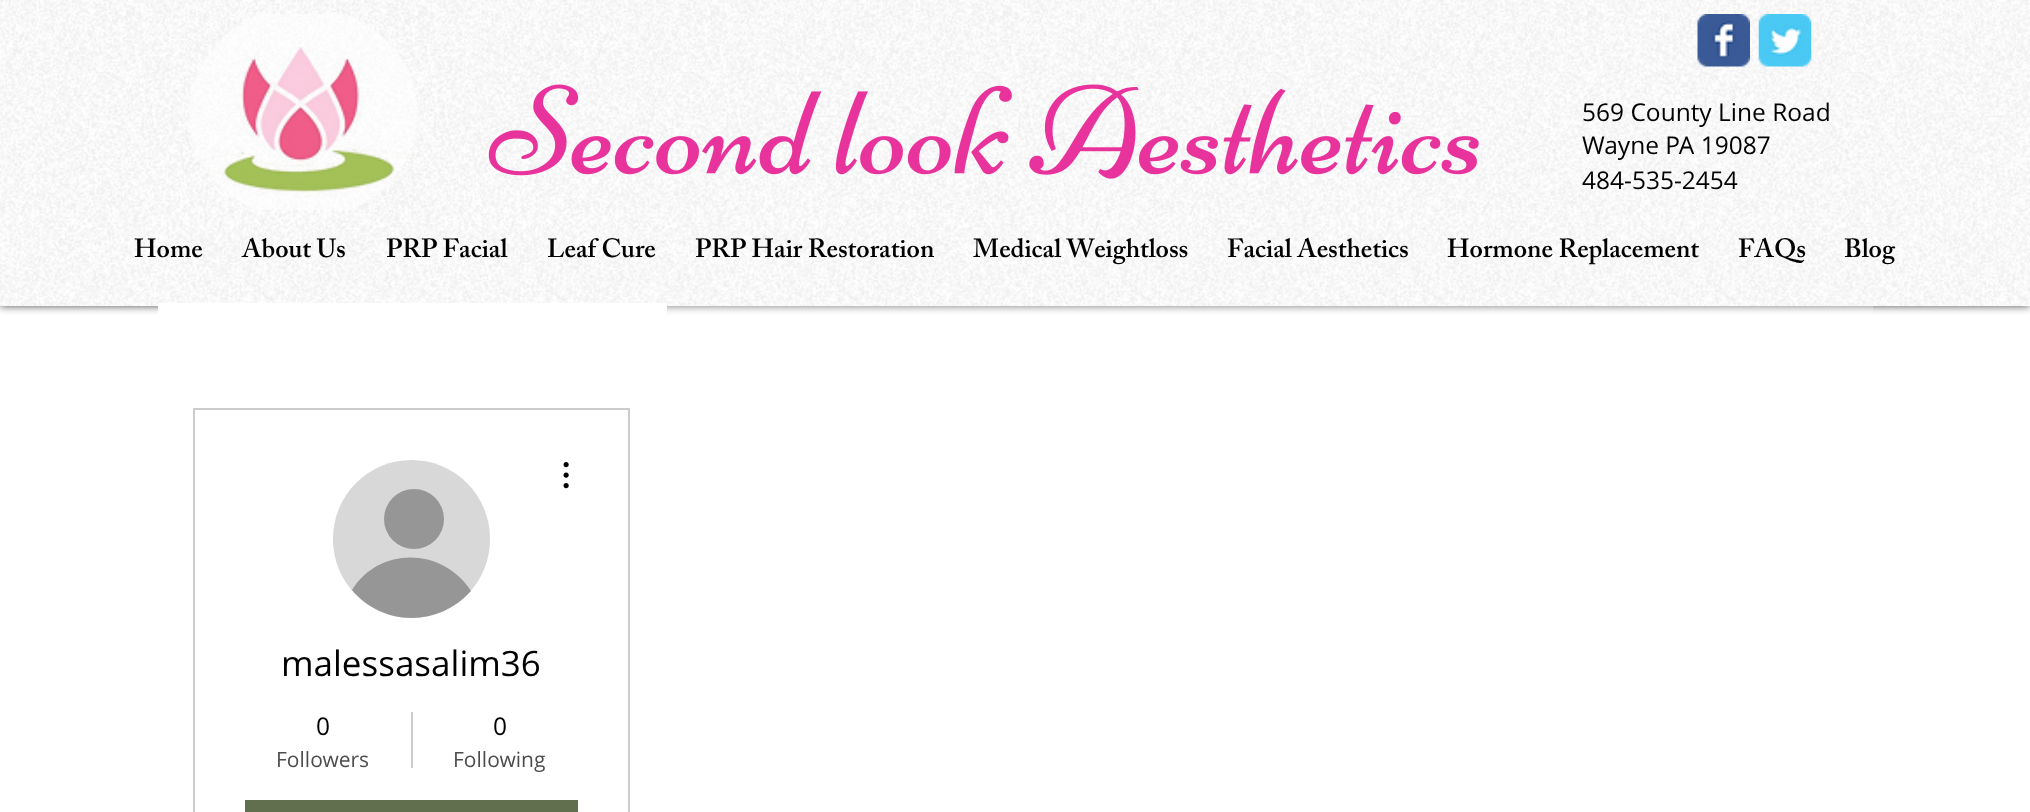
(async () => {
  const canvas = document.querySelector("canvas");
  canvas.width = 2030;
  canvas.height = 812;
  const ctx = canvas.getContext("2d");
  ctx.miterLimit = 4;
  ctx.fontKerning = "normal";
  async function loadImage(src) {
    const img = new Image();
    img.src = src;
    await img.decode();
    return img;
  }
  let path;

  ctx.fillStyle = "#ffffff";
  ctx.fillRect(0, 0, 2030, 812);
  ctx.save();
  ctx.beginPath();
  ctx.rect(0, 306, 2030, 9);
  ctx.clip();
  ctx.fillStyle = "rgba(0, 0, 0, 0.7)";
  ctx.filter = "blur(4.5px)";
  ctx.beginPath();
  ctx.rect(0, 0, 2030, 306);
  ctx.fill();
  ctx.filter = "none";
  ctx.restore();
  ctx.drawImage(await loadImage("img/2.png"), 0, 0, 2030, 306);
  ctx.fillRect(158, 303, 509, 13);
  ctx.strokeStyle = "#cccccc";
  ctx.lineWidth = 2;
  ctx.strokeRect(194, 409, 435, 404);
  ctx.fillStyle = "#d8d8d8";
  ctx.beginPath();
  ctx.roundRect(333, 460, 157, 158, 78.5);
  ctx.fill();
  ctx.fillStyle = "#969696";
  ctx.beginPath();
  ctx.arc(414, 519, 30, 0, Math.PI * 2);
  ctx.fill();
  path = new Path2D("M471 591C439 627 383 627 352 590C379 546 443 547 471 591Z");
  ctx.fill(path);
  ctx.drawImage(await loadImage("img/1.png"), 563, 462, 6, 27);
  ctx.fillStyle = "#cccccc";
  ctx.fillRect(411, 712, 2, 56);
  ctx.fillStyle = "#616f4e";
  ctx.fillRect(245, 800, 333, 12);
  ctx.drawImage(await loadImage("img/3.png"), 189, 14, 231, 196);
  ctx.drawImage(await loadImage("img/4.png"), 1697, 14, 53, 53);
  ctx.drawImage(await loadImage("img/5.png"), 1758, 14, 54, 53);
  ctx.drawImage(await loadImage("img/6.png"), 488, 84, 991, 95);
  ctx.fillStyle = "rgba(255, 255, 255, 0.25)";
  ctx.fillRect(667, 306, 1206, 7);
  ctx.font = "24.5px Open Sans";
  ctx.fillStyle = "#000000";
  ctx.fillText("569 County Line Road", 1582, 121);
  ctx.fillText("Wayne PA 19087", 1582, 154);
  ctx.font = "35px Open Sans";
  ctx.fillText("malessasalim36", 281, 676);
  ctx.font = "24.5px Open Sans";
  ctx.fillText("0", 316, 735);
  ctx.font = "21px Open Sans";
  ctx.fillStyle = "#4d4d4d";
  ctx.fillText("Followers", 276, 767);
  ctx.font = "24.5px Open Sans";
  ctx.fillStyle = "#000000";
  ctx.fillText("0", 493, 735);
  ctx.font = "21px Open Sans";
  ctx.fillStyle = "#4d4d4d";
  ctx.fillText("Following", 453, 767);
  ctx.font = "24.5px Open Sans";
  ctx.fillStyle = "#000000";
  ctx.fillText("484-535-2454", 1582, 189);
  ctx.font = "600 26.25px 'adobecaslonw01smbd'";
  for (const [text, x, y] of [
    ["Home", 134, 257],
    ["About Us", 242, 257],
    ["PRP Facial", 386, 257],
    ["Leaf Cure", 547, 257],
    ["PRP Hair Restoration", 695, 257],
    ["Medical Weightloss", 973, 257],
    ["Facial Aesthetics", 1227, 257],
    ["Hormone Replacement", 1447, 257],
    ["FAQs", 1738, 257],
    ["Blog", 1844, 257],
  ]) {
    ctx.fillText(text, x, y);
  }
})();
